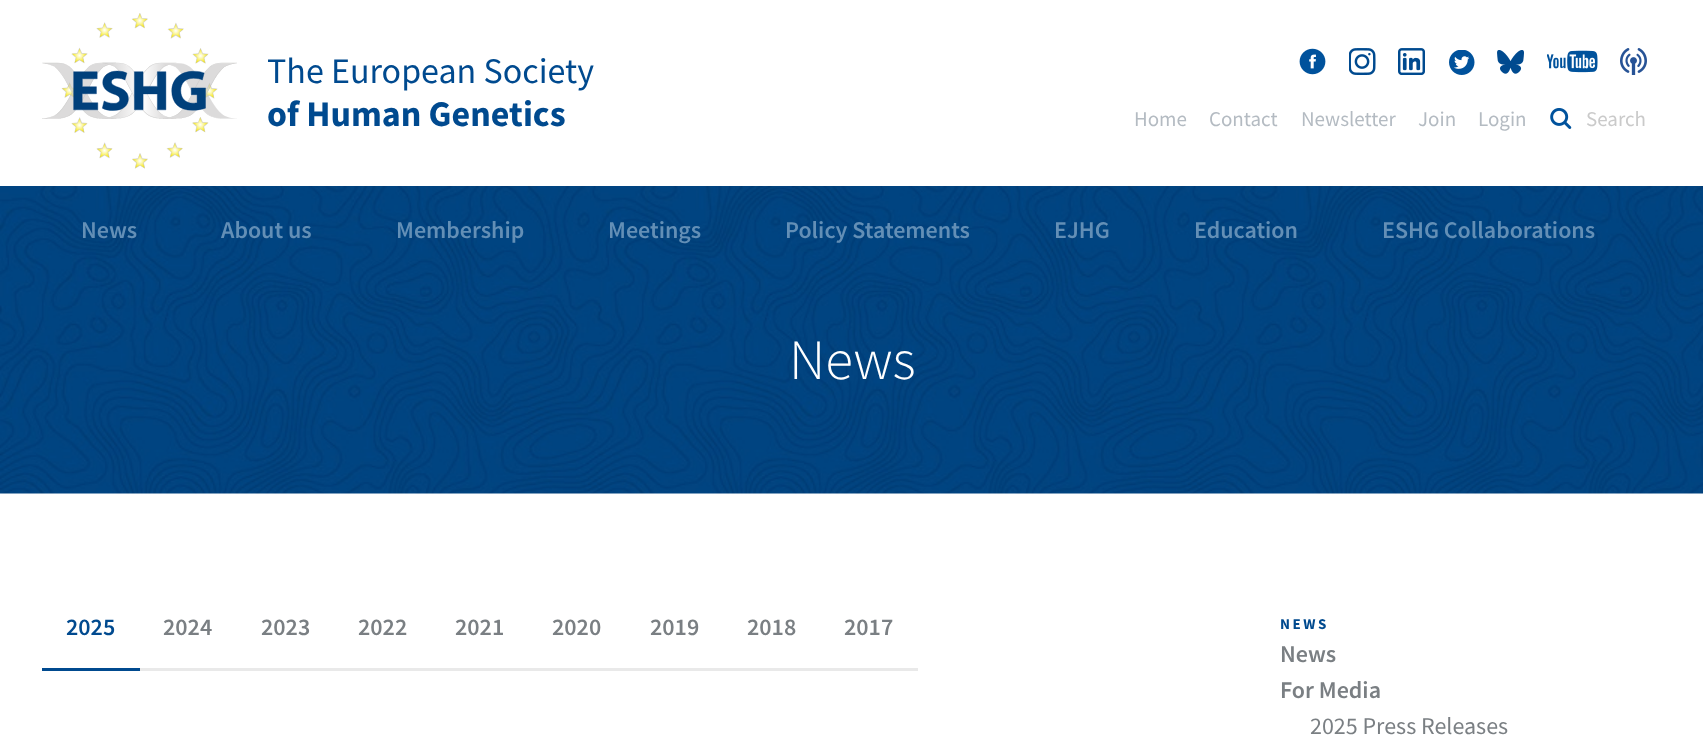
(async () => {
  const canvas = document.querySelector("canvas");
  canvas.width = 1703;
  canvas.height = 742;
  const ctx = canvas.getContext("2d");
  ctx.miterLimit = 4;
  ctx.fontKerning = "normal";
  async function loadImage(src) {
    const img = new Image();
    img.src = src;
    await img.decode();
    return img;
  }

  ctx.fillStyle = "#ffffff";
  ctx.fillRect(0, 0, 1703, 742);
  ctx.drawImage(await loadImage("img/1.png"), 42, 13, 195, 156);
  ctx.drawImage(await loadImage("img/2.png"), 1299, 48, 27, 27);
  ctx.drawImage(await loadImage("img/3.png"), 1349, 48, 27, 27);
  ctx.drawImage(await loadImage("img/4.png"), 1398, 48, 27, 27);
  ctx.drawImage(await loadImage("img/5.png"), 1449, 50, 26, 25);
  ctx.drawImage(await loadImage("img/6.png"), 1497, 50, 27, 24);
  ctx.drawImage(await loadImage("img/7.png"), 1547, 50, 51, 23);
  ctx.drawImage(await loadImage("img/8.png"), 1620, 48, 27, 27);
  ctx.drawImage(await loadImage("img/9.png"), 1550, 108, 22, 21);
  ctx.drawImage(await loadImage("img/10.png"), 0, 186, 1703, 308);
  ctx.fillStyle = "#004a8f";
  ctx.fillRect(42, 668, 98, 3);
  ctx.fillStyle = "#e9e9e9";
  ctx.fillRect(140, 668, 778, 3);
  ctx.font = "36px Source Sans Pro";
  ctx.fillStyle = "#004a8f";
  ctx.fillText("The European Society", 267, 83);
  ctx.font = "bold 36px Source Sans Pro";
  ctx.fillText("of Human Genetics", 267, 126);
  ctx.font = "21px Source Sans Pro";
  ctx.fillStyle = "#b4bbc2";
  for (const [text, x, y] of [
    ["Home", 1134, 126],
    ["Contact", 1209, 126],
    ["Newsletter", 1301, 126],
    ["Join", 1418, 126],
    ["Login", 1478, 126],
  ]) {
    ctx.fillText(text, x, y);
  }
  ctx.fillStyle = "#cacaca";
  ctx.fillText("Search", 1586, 126);
  ctx.font = "600 24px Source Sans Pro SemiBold";
  ctx.fillStyle = "#638fb6";
  for (const [text, x, y] of [
    ["News", 81, 238],
    ["About us", 221, 238],
    ["Membership", 396, 238],
    ["Meetings", 608, 238],
    ["Policy Statements", 785, 238],
    ["EJHG", 1054, 238],
    ["Education", 1194, 238],
    ["ESHG Collaborations", 1382, 238],
  ]) {
    ctx.fillText(text, x, y);
  }
  ctx.font = "300 57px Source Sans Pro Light";
  ctx.fillStyle = "#ffffff";
  ctx.fillText("News", 789, 379);
  ctx.font = "600 24px Source Sans Pro SemiBold";
  ctx.fillStyle = "#004a8f";
  ctx.fillText("2025", 66, 635);
  ctx.fillStyle = "#7a7f83";
  for (const [text, x, y] of [
    ["2024", 163, 635],
    ["2023", 261, 635],
    ["2022", 358, 635],
    ["2021", 455, 635],
    ["2020", 552, 635],
    ["2019", 650, 635],
    ["2018", 747, 635],
    ["2017", 844, 635],
  ]) {
    ctx.fillText(text, x, y);
  }
  ctx.letterSpacing = "2.5px";
  ctx.font = "bold 15px Source Sans Pro";
  ctx.fillStyle = "#004a8f";
  ctx.fillText("NEWS", 1280, 629);
  ctx.letterSpacing = "0px";
  ctx.font = "600 24px Source Sans Pro SemiBold";
  ctx.fillStyle = "#7a7f83";
  ctx.fillText("News", 1280, 662);
  ctx.fillText("For Media", 1280, 698);
  ctx.font = "24px Source Sans Pro";
  ctx.fillText("2025 Press Releases", 1310, 734);
})();
